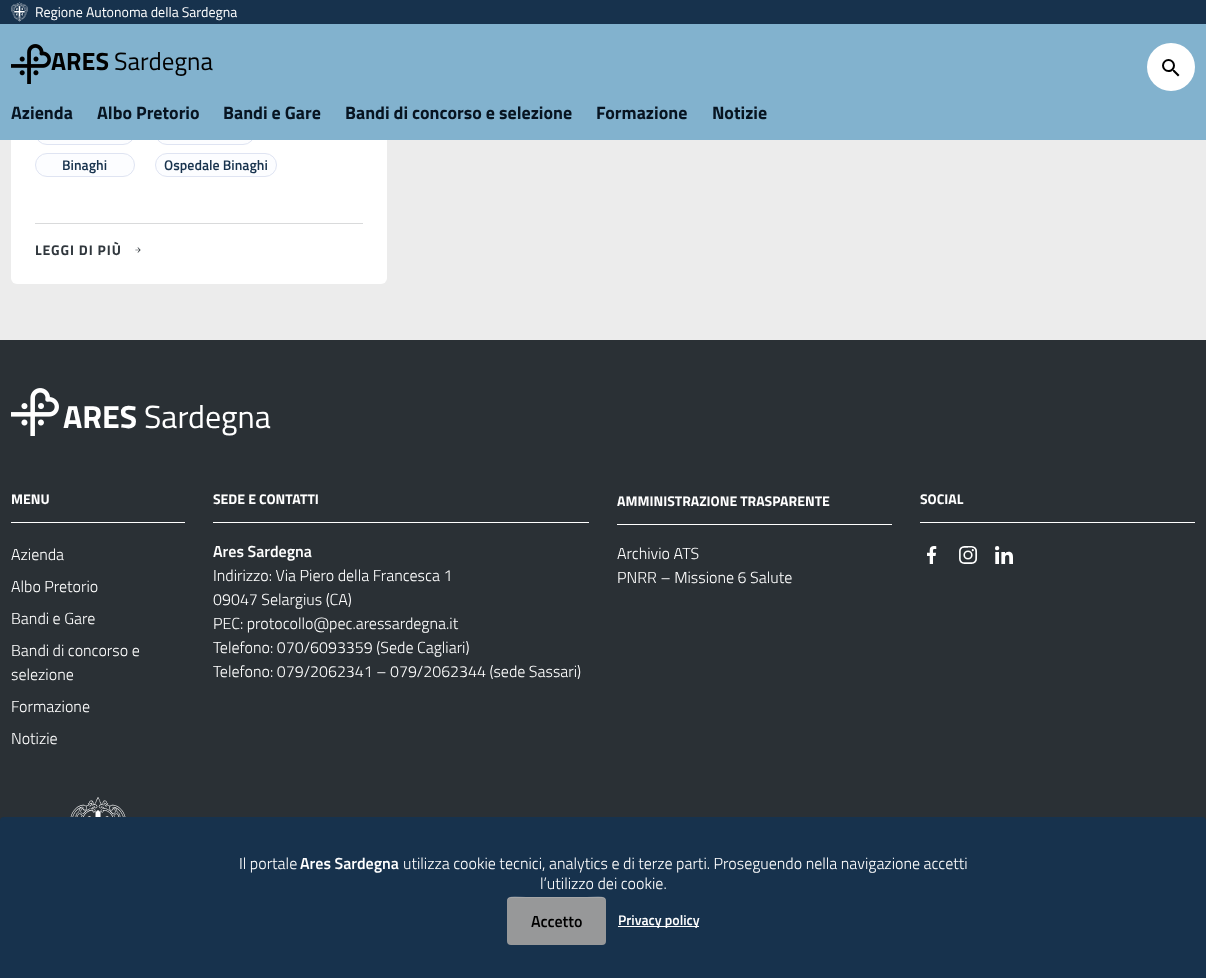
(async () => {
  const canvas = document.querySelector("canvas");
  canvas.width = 1206;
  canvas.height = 978;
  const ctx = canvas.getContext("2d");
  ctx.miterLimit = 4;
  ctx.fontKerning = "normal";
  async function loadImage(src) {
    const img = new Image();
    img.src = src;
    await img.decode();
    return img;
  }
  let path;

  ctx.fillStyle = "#ececec";
  ctx.fillRect(0, 0, 1206, 978);
  ctx.fillStyle = "#ffffff";
  ctx.beginPath();
  ctx.roundRect(11, -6, 376, 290, 6);
  ctx.fill();
  ctx.fillStyle = "#fcfdff";
  ctx.beginPath();
  ctx.roundRect(35.5, 121.5, 99, 23, 11.5);
  ctx.fill();
  ctx.strokeStyle = "#dfe4f2";
  ctx.stroke();
  ctx.beginPath();
  ctx.roundRect(155.5, 121.5, 99, 23, 11.5);
  ctx.fill();
  ctx.stroke();
  ctx.fillStyle = "#82b2ce";
  ctx.fillRect(0, 24, 1206, 116);
  ctx.fillStyle = "#17324d";
  ctx.fillRect(0, 0, 1206, 24);
  ctx.drawImage(await loadImage("img/1.png"), 11, 2, 17, 20);
  ctx.drawImage(await loadImage("img/2.png"), 11, 44, 40, 40);
  ctx.fillStyle = "#ffffff";
  ctx.beginPath();
  ctx.arc(1171, 67, 24, 0, Math.PI * 2);
  ctx.fill();
  ctx.drawImage(await loadImage("img/3.png"), 1162, 59, 18, 18);
  ctx.fillStyle = "#fcfdff";
  ctx.beginPath();
  ctx.roundRect(35.5, 153.5, 99, 23, 11.5);
  ctx.fill();
  ctx.stroke();
  ctx.beginPath();
  ctx.roundRect(155.5, 153.5, 121, 23, 11.5);
  ctx.fill();
  ctx.stroke();
  ctx.fillStyle = "#d9dadb";
  ctx.fillRect(35, 223, 328, 1);
  ctx.drawImage(await loadImage("img/4.png"), 135, 247, 6, 6);
  ctx.fillStyle = "#2a3035";
  ctx.fillRect(0, 340, 1206, 481);
  ctx.drawImage(await loadImage("img/5.png"), 11, 388, 48, 48);
  for (const [x, y, w, h, color] of [
    [11, 522, 174, 1, "#ffffff"],
    [213, 522, 376, 1, "#ffffff"],
    [617, 524, 275, 1, "#ffffff"],
    [920, 522, 275, 1, "#ffffff"],
  ]) {
    ctx.fillStyle = color;
    ctx.fillRect(x, y, w, h);
  }
  ctx.drawImage(await loadImage("img/6.png"), 927, 546, 10, 18);
  ctx.drawImage(await loadImage("img/7.png"), 959, 546, 19, 18);
  ctx.drawImage(await loadImage("img/8.png"), 995, 546, 18, 18);
  ctx.drawImage(await loadImage("img/9.png"), 70, 797, 56, 20);
  ctx.fillStyle = "#17324d";
  ctx.beginPath();
  ctx.roundRect(0, 817, 1206, 161, [4, 4, 0, 0]);
  ctx.fill();
  ctx.fillStyle = "#979899";
  ctx.beginPath();
  ctx.roundRect(507, 897, 99, 48, 4);
  ctx.fill();
  ctx.fillStyle = "rgba(255, 255, 255, 0.15)";
  path = new Path2D("M511 898H602C604 898 606 900 606 902C606 893 591 897 587 897H526C522 897 507 893 507 902C507 900 509 898 511 898Z");
  ctx.fill(path);
  ctx.fillStyle = "#ffffff";
  ctx.fillRect(618, 926, 81, 1);
  ctx.font = "14px Titillium Web";
  ctx.fillText("Regione Autonoma della Sardegna", 35, 17);
  ctx.font = "bold 25px Titillium Web";
  ctx.fillStyle = "#000000";
  ctx.fillText("ARES", 51, 70);
  ctx.font = "25px Titillium Web";
  ctx.fillText("Sardegna", 114, 70);
  ctx.font = "bold 18px Titillium Web";
  ctx.fillStyle = "#071421";
  for (const [text, x, y] of [
    ["Azienda", 11, 119],
    ["Albo Pretorio", 97, 119],
    ["Bandi e Gare", 223, 119],
    ["Bandi di concorso e selezione", 345, 119],
    ["Formazione", 596, 119],
    ["Notizie", 712, 119],
  ]) {
    ctx.fillText(text, x, y);
  }
  ctx.font = "600 14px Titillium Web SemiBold";
  ctx.fillStyle = "#17324d";
  ctx.fillText("Binaghi", 62, 170);
  ctx.fillText("Ospedale Binaghi", 164, 170);
  ctx.letterSpacing = "0.9px";
  ctx.font = "bold 14px Titillium Web";
  ctx.fillStyle = "#30373d";
  ctx.fillText("LEGGI DI PIÙ", 35, 255);
  ctx.letterSpacing = "0px";
  ctx.font = "bold 32px Titillium Web";
  ctx.fillStyle = "#ffffff";
  ctx.fillText("ARES", 63, 428);
  ctx.font = "32px Titillium Web";
  ctx.fillText("Sardegna", 144, 428);
  ctx.font = "bold 14px Titillium Web";
  ctx.fillText("MENU", 11, 504);
  ctx.font = "300 16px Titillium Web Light";
  for (const [text, x, y] of [
    ["Azienda", 11, 560],
    ["Albo Pretorio", 11, 592],
    ["Bandi e Gare", 11, 624],
    ["Bandi di concorso e", 11, 656],
    ["selezione", 11, 680],
    ["Formazione", 11, 712],
    ["Notizie", 11, 744],
  ]) {
    ctx.fillText(text, x, y);
  }
  ctx.font = "bold 14px Titillium Web";
  ctx.fillText("SEDE E CONTATTI", 213, 504);
  ctx.font = "600 16px Titillium Web SemiBold";
  ctx.fillText("Ares Sardegna", 213, 557);
  ctx.font = "300 16px Titillium Web Light";
  for (const [text, x, y] of [
    ["Indirizzo: Via Piero della Francesca 1", 213, 581],
    ["09047 Selargius (CA)", 213, 605],
    ["PEC: protocollo@pec.aressardegna.it", 213, 629],
    ["Telefono: 070/6093359 (Sede Cagliari)", 213, 653],
    ["Telefono: 079/2062341 – 079/2062344 (sede Sassari)", 213, 677],
  ]) {
    ctx.fillText(text, x, y);
  }
  ctx.font = "bold 14px Titillium Web";
  ctx.fillText("AMMINISTRAZIONE TRASPARENTE", 617, 506);
  ctx.font = "300 16px Titillium Web Light";
  ctx.fillText("Archivio ATS", 617, 559);
  ctx.fillText("PNRR – Missione 6 Salute", 617, 583);
  ctx.font = "bold 14px Titillium Web";
  ctx.fillText("SOCIAL", 920, 504);
  ctx.font = "300 16px Titillium Web Light";
  ctx.fillText("Il portale", 239, 869);
  ctx.font = "600 16px Titillium Web SemiBold";
  ctx.fillText("Ares Sardegna", 300, 869);
  ctx.font = "300 16px Titillium Web Light";
  ctx.fillText("utilizza cookie tecnici, analytics e di terze parti. Proseguendo nella navigazione accetti", 403, 869);
  ctx.fillText("l’utilizzo dei cookie.", 540, 889);
  ctx.font = "600 16px Titillium Web SemiBold";
  ctx.fillStyle = "#000000";
  ctx.fillText("Accetto", 531, 927);
  ctx.font = "600 14px Titillium Web SemiBold";
  ctx.fillStyle = "#ffffff";
  ctx.fillText("Privacy policy", 618, 925);
})();
